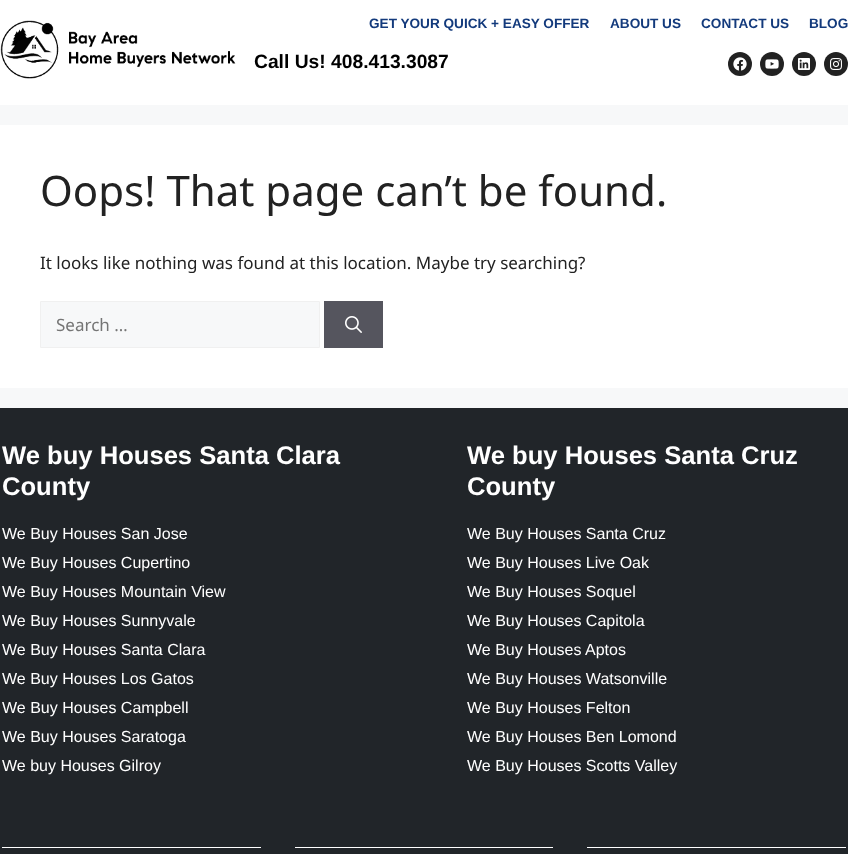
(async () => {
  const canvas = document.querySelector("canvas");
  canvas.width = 848;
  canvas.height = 854;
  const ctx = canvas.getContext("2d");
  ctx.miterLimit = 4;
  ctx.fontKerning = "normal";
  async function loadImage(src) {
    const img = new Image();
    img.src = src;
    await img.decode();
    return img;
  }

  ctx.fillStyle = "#f7f8f9";
  ctx.fillRect(0, 0, 848, 854);
  ctx.fillStyle = "#ffffff";
  ctx.fillRect(0, 0, 848, 105);
  ctx.drawImage(await loadImage("img/1.png"), 0, 20, 236, 59);
  ctx.fillStyle = "#222222";
  ctx.beginPath();
  ctx.arc(740, 64, 12, 0, Math.PI * 2);
  ctx.fill();
  ctx.drawImage(await loadImage("img/2.png"), 733, 57, 14, 14);
  ctx.beginPath();
  ctx.arc(772, 64, 12, 0, Math.PI * 2);
  ctx.fill();
  ctx.drawImage(await loadImage("img/3.png"), 765, 59, 14, 10);
  ctx.beginPath();
  ctx.arc(804, 64, 12, 0, Math.PI * 2);
  ctx.fill();
  ctx.drawImage(await loadImage("img/4.png"), 798, 58, 12, 12);
  ctx.beginPath();
  ctx.arc(836, 64, 12, 0, Math.PI * 2);
  ctx.fill();
  ctx.drawImage(await loadImage("img/5.png"), 830, 58, 12, 12);
  ctx.fillStyle = "#ffffff";
  ctx.fillRect(0, 125, 848, 263);
  ctx.fillStyle = "#f7f8f9";
  ctx.beginPath();
  ctx.rect(40.5, 301.5, 279, 46);
  ctx.fill();
  ctx.strokeStyle = "#f0f0f0";
  ctx.stroke();
  ctx.fillStyle = "#55555e";
  ctx.fillRect(324, 301, 59, 47);
  ctx.drawImage(await loadImage("img/6.png"), 345, 316, 17, 17);
  for (const [x, y, w, h, color] of [
    [0, 408, 848, 446, "#212529"],
    [2, 847, 259, 1, "#ffffff"],
    [295, 847, 258, 1, "#ffffff"],
    [587, 847, 259, 1, "#ffffff"],
  ]) {
    ctx.fillStyle = color;
    ctx.fillRect(x, y, w, h);
  }
  ctx.font = "bold 13.6px Liberation Sans";
  ctx.fillStyle = "#133a7c";
  for (const [text, x, y] of [
    ["GET YOUR QUICK + EASY OFFER", 369, 28],
    ["ABOUT US", 610, 28],
    ["CONTACT US", 701, 28],
    ["BLOG", 809, 28],
  ]) {
    ctx.fillText(text, x, y);
  }
  ctx.font = "bold 19.25px Liberation Sans";
  ctx.fillStyle = "#000000";
  ctx.fillText("Call Us! 408.413.3087", 254, 68);
  ctx.font = "42px Noto Sans";
  ctx.fillStyle = "#222222";
  ctx.fillText("Oops! That page can’t be found.", 40, 206);
  ctx.font = "17px Noto Sans";
  ctx.fillText("It looks like nothing was found at this location. Maybe try searching?", 40, 269);
  ctx.fillStyle = "#757575";
  ctx.fillText("Search …", 56, 331);
  ctx.font = "bold 25.6px Liberation Sans";
  ctx.fillStyle = "#ffffff";
  ctx.fillText("We buy Houses Santa Clara", 2, 464);
  ctx.fillText("County", 2, 495);
  ctx.font = "16px Liberation Sans";
  for (const [text, x, y] of [
    ["We Buy Houses San Jose", 2, 539],
    ["We Buy Houses Cupertino", 2, 568],
    ["We Buy Houses Mountain View", 2, 597],
    ["We Buy Houses Sunnyvale", 2, 626],
    ["We Buy Houses Santa Clara", 2, 655],
    ["We Buy Houses Los Gatos", 2, 684],
    ["We Buy Houses Campbell", 2, 713],
    ["We Buy Houses Saratoga", 2, 742],
    ["We buy Houses Gilroy", 2, 771],
  ]) {
    ctx.fillText(text, x, y);
  }
  ctx.font = "bold 25.6px Liberation Sans";
  ctx.fillText("We buy Houses Santa Cruz", 467, 464);
  ctx.fillText("County", 467, 495);
  ctx.font = "16px Liberation Sans";
  for (const [text, x, y] of [
    ["We Buy Houses Santa Cruz", 467, 539],
    ["We Buy Houses Live Oak", 467, 568],
    ["We Buy Houses Soquel", 467, 597],
    ["We Buy Houses Capitola", 467, 626],
    ["We Buy Houses Aptos", 467, 655],
    ["We Buy Houses Watsonville", 467, 684],
    ["We Buy Houses Felton", 467, 713],
    ["We Buy Houses Ben Lomond", 467, 742],
    ["We Buy Houses Scotts Valley", 467, 771],
  ]) {
    ctx.fillText(text, x, y);
  }
})();
